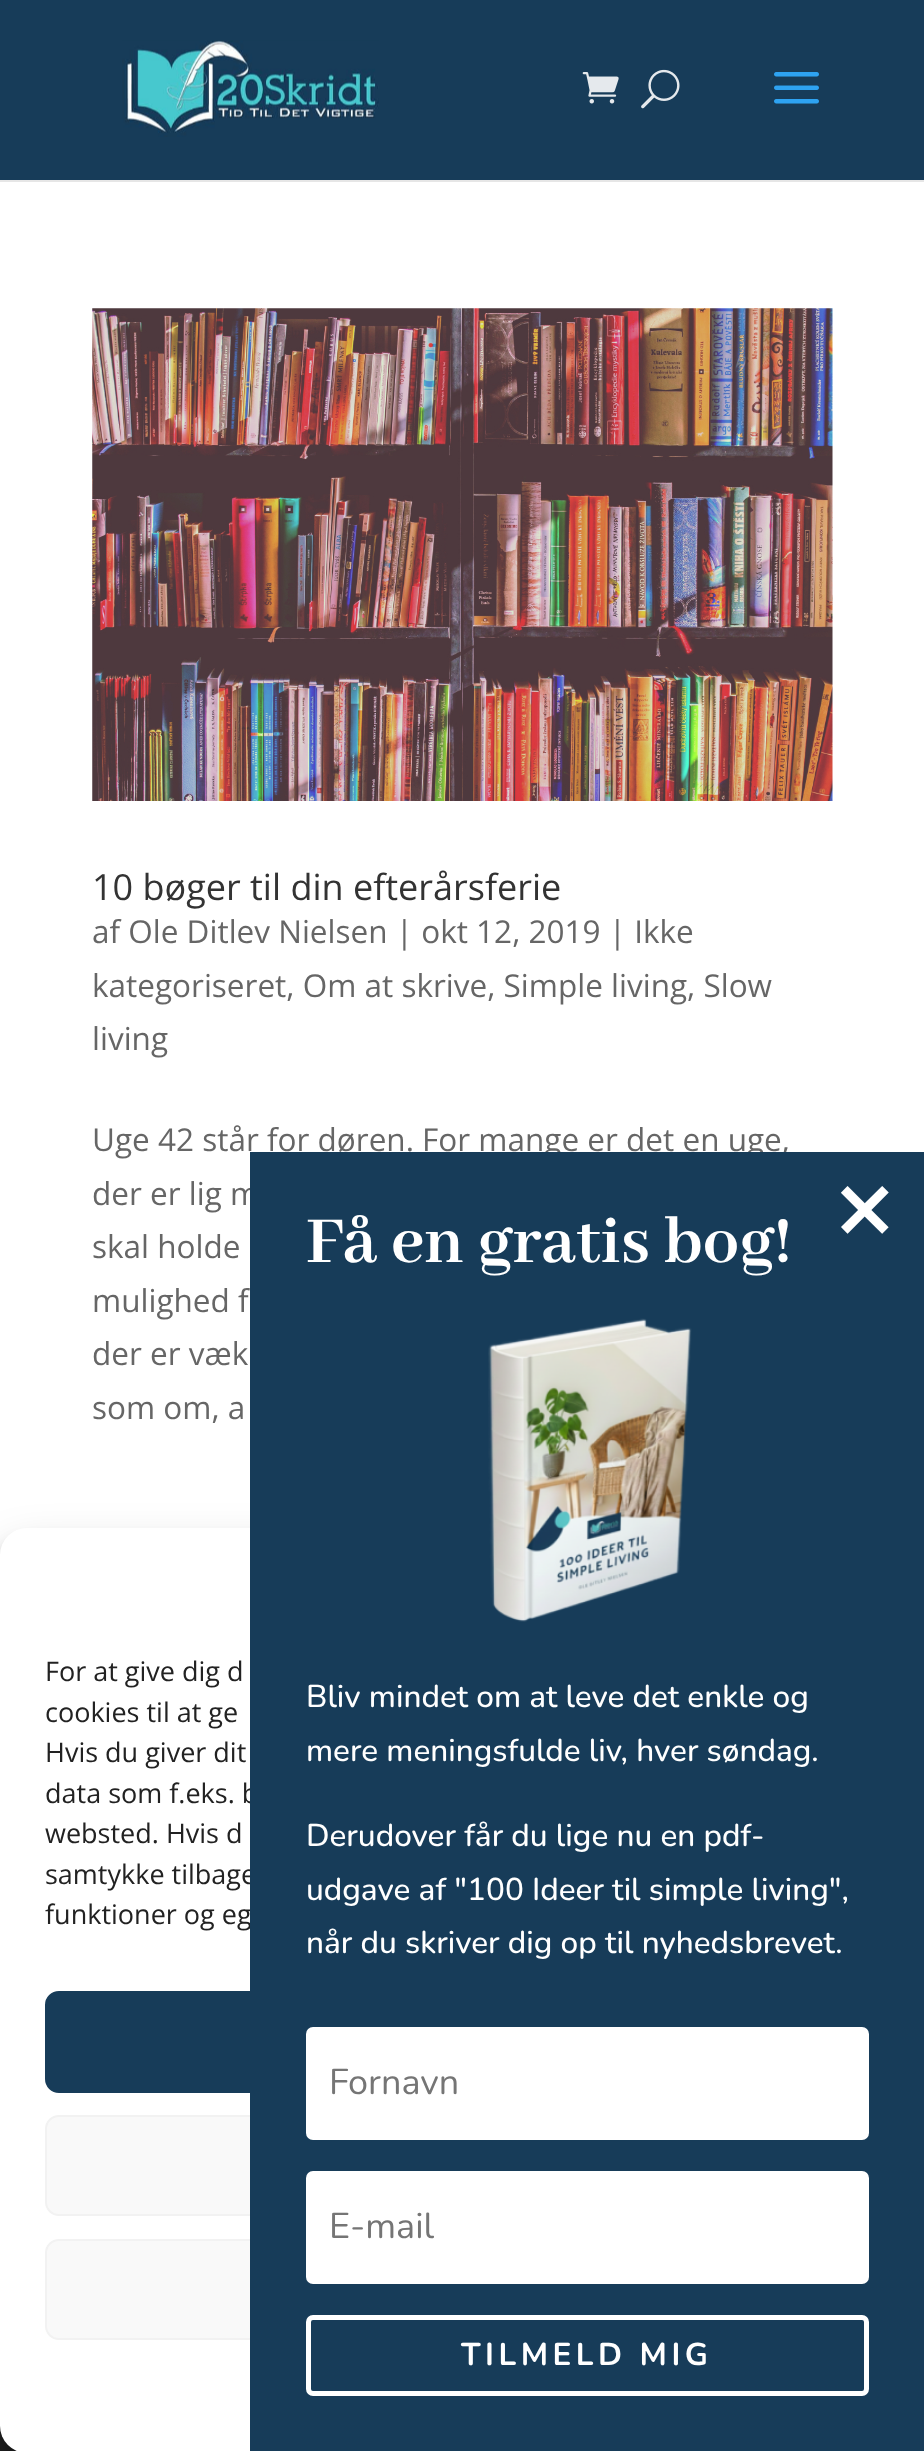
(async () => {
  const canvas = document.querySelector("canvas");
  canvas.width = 924;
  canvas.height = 2451;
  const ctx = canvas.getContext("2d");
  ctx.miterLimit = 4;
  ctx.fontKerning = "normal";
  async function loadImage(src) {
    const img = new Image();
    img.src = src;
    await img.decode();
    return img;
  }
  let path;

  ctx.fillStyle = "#ffffff";
  ctx.fillRect(0, 0, 924, 2451);
  ctx.fillStyle = "#e6e6e6";
  path = new Path2D("M0 180V182H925V2V180Z");
  ctx.fill(path);
  ctx.fillStyle = "#173c59";
  ctx.fillRect(0, 0, 924, 180);
  ctx.drawImage(await loadImage("img/1.png"), 122, 40, 257, 97);
  ctx.drawImage(await loadImage("img/2.png"), 582, 72, 37, 32);
  ctx.drawImage(await loadImage("img/3.png"), 641, 69, 39, 40);
  ctx.drawImage(await loadImage("img/4.png"), 774, 72, 45, 32);
  ctx.drawImage(await loadImage("img/5.png"), 92, 308, 741, 493);
  ctx.fillStyle = "#222222";
  ctx.fillRect(0, 2426, 17, 25);
  ctx.fillStyle = "rgba(0, 0, 0, 0.23)";
  ctx.filter = "blur(7px)";
  ctx.beginPath();
  ctx.roundRect(0, 1541, 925, 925, 27);
  ctx.fill();
  ctx.filter = "none";
  ctx.fillStyle = "rgba(0, 0, 0, 0.19)";
  ctx.filter = "blur(22.5px)";
  ctx.beginPath();
  ctx.roundRect(0, 1550, 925, 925, 27);
  ctx.fill();
  ctx.filter = "none";
  ctx.fillStyle = "#ffffff";
  ctx.beginPath();
  ctx.roundRect(0, 1528, 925, 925, 27);
  ctx.fill();
  ctx.fillStyle = "#173c59";
  ctx.beginPath();
  ctx.roundRect(46, 1992, 833, 100, 13);
  ctx.fill();
  ctx.strokeStyle = "#173c59";
  ctx.lineWidth = 2;
  ctx.stroke();
  ctx.fillStyle = "#f9f9f9";
  ctx.beginPath();
  ctx.roundRect(46, 2116, 833, 99, 13);
  ctx.fill();
  ctx.strokeStyle = "#f2f2f2";
  ctx.stroke();
  ctx.beginPath();
  ctx.roundRect(46, 2240, 833, 99, 13);
  ctx.fill();
  ctx.stroke();
  ctx.font = "36px Open Sans";
  ctx.fillStyle = "#333333";
  ctx.fillText("10 bøger til din efterårsferie", 92, 900);
  ctx.font = "31.5px Open Sans";
  ctx.fillStyle = "#666666";
  for (const [text, x, y] of [
    ["af Ole Ditlev Nielsen | okt 12, 2019 | Ikke", 92, 943],
    ["kategoriseret, Om at skrive, Simple living, Slow", 92, 997],
    ["living", 92, 1050],
    ["Uge 42 står for døren. For mange er det en uge,", 92, 1151],
    ["der er lig m", 92, 1205],
    ["skal holde", 92, 1258],
    ["mulighed f", 92, 1312],
    ["der er væk", 92, 1365],
    ["som om, a", 92, 1419],
  ]) {
    ctx.fillText(text, x, y);
  }
  ctx.font = "27px Open Sans";
  ctx.fillStyle = "#222222";
  for (const [text, x, y] of [
    ["For at give dig d", 45, 1681],
    ["cookies til at ge", 45, 1722],
    ["Hvis du giver dit", 45, 1762],
    ["data som f.eks. b", 45, 1803],
    ["websted. Hvis d", 45, 1843],
    ["samtykke tilbage", 45, 1884],
    ["funktioner og eg", 45, 1924],
  ]) {
    ctx.fillText(text, x, y);
  }
  ctx.fillStyle = "#173c59";
  ctx.fillRect(250, 1152, 674, 1299);
  ctx.font = "600 108px Open Sans";
  ctx.fillStyle = "#ffffff";
  ctx.fillText("×", 834, 1248);
  ctx.font = "bold 72px Abhaya Libre";
  ctx.fillText("Få en gratis bog!", 306, 1262);
  ctx.drawImage(await loadImage("img/6.png"), 488, 1318, 204, 304);
  ctx.font = "500 31.5px Nunito";
  for (const [text, x, y] of [
    ["Bliv mindet om at leve det enkle og", 306, 1707],
    ["mere meningsfulde liv, hver søndag.", 306, 1761],
    ["Derudover får du lige nu en pdf-", 306, 1846],
    ["udgave af \"100 Ideer til simple living\",", 306, 1900],
    ["når du skriver dig op til nyhedsbrevet.", 306, 1953],
  ]) {
    ctx.fillText(text, x, y);
  }
  ctx.beginPath();
  ctx.roundRect(306, 2027, 563, 113, 7);
  ctx.fill();
  ctx.font = "36px Nunito";
  ctx.fillStyle = "#757575";
  ctx.fillText("Fornavn", 329, 2094);
  ctx.fillStyle = "#ffffff";
  ctx.beginPath();
  ctx.roundRect(306, 2171, 563, 113, 7);
  ctx.fill();
  ctx.fillStyle = "#757575";
  ctx.fillText("E-mail", 329, 2238);
  ctx.beginPath();
  ctx.roundRect(308.5, 2317.5, 558, 76, 4.5);
  ctx.strokeStyle = "#ffffff";
  ctx.lineWidth = 5;
  ctx.stroke();
  ctx.letterSpacing = "4.5px";
  ctx.font = "bold 31.5px Nunito";
  ctx.fillStyle = "#ffffff";
  ctx.fillText("TILMELD MIG", 461, 2365);
})();
